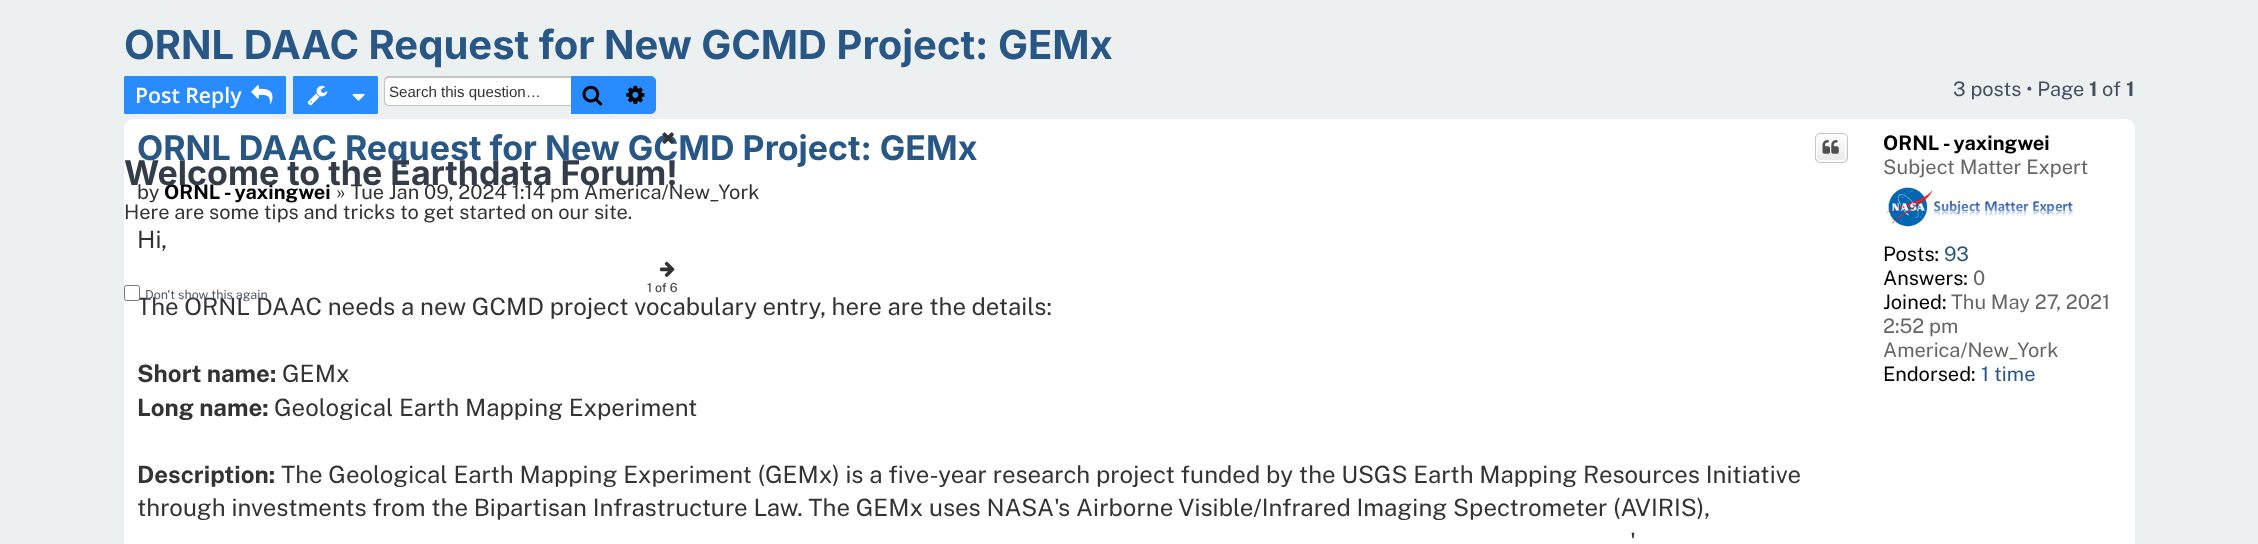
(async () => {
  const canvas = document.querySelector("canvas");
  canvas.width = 2258;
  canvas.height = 544;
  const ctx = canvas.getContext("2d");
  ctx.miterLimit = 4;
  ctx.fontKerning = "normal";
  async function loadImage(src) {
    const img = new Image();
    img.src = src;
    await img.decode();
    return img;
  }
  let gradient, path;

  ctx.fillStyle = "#ecf0f1";
  ctx.fillRect(0, 0, 2258, 544);
  ctx.fillStyle = "#288bff";
  ctx.beginPath();
  ctx.roundRect(124.5, 76.5, 161, 37, 0.5);
  ctx.fill();
  ctx.strokeStyle = "#288bff";
  ctx.stroke();
  ctx.drawImage(await loadImage("img/1.png"), 251, 85, 22, 19);
  ctx.beginPath();
  ctx.roundRect(293.5, 76.5, 84, 37, 0.5);
  ctx.fill();
  ctx.stroke();
  ctx.drawImage(await loadImage("img/2.png"), 307, 85, 21, 21);
  ctx.drawImage(await loadImage("img/3.png"), 352, 93, 13, 8);
  ctx.fillStyle = "#ffffff";
  ctx.beginPath();
  ctx.roundRect(385, 78, 186, 27, [4, 0, 0, 4]);
  ctx.fill();
  ctx.fillStyle = "#c7c3bf";
  path = new Path2D("M389 76H571V106H389C386 106 384 104 384 101V81C384 78 386 76 389 76ZM389 78H571V105H389C387 105 385 103 385 101V81C385 79 387 78 389 78Z");
  ctx.fill(path, "evenodd");
  ctx.fillStyle = "#288bff";
  ctx.fillRect(571, 76, 43, 38);
  ctx.drawImage(await loadImage("img/4.png"), 582, 85, 21, 21);
  ctx.beginPath();
  ctx.roundRect(614.5, 76.5, 41, 37, [0, 4.5, 4.5, 0]);
  ctx.fill();
  ctx.stroke();
  ctx.drawImage(await loadImage("img/5.png"), 626, 85, 19, 19);
  ctx.fillStyle = "#ffffff";
  ctx.beginPath();
  ctx.roundRect(124, 119, 2011, 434, 9);
  ctx.fill();
  ctx.save();
  ctx.beginPath();
  ctx.roundRect(1815, 133, 33, 30, 5);
  ctx.clip();
  gradient = ctx.createLinearGradient(1831, 134, 1831, 161);
  gradient.addColorStop(0, "#ffffff");
  gradient.addColorStop(1, "#e9e9e9");
  ctx.fillStyle = gradient;
  ctx.fillRect(1815, 134, 33, 27);
  ctx.restore();
  ctx.beginPath();
  ctx.roundRect(1816.5, 134.5, 29, 26, 3.5);
  ctx.strokeStyle = "#ffffff";
  ctx.stroke();
  ctx.beginPath();
  ctx.roundRect(1815.5, 133.5, 32, 29, 4.5);
  ctx.strokeStyle = "#c7c3bf";
  ctx.stroke();
  ctx.drawImage(await loadImage("img/6.png"), 1822, 140, 17, 14);
  ctx.drawImage(await loadImage("img/7.png"), 1886, 187, 187, 40);
  ctx.drawImage(await loadImage("img/9.png"), 660, 261, 15, 16);
  ctx.font = "bold 40px Inter";
  ctx.fillStyle = "#285786";
  ctx.fillText("ORNL DAAC Request for New GCMD Project: GEMx", 124, 59);
  ctx.font = "600 21.25px Open Sans";
  ctx.fillStyle = "#ffffff";
  ctx.fillText("Post Reply", 135, 103);
  ctx.font = "15.1px Liberation Sans";
  ctx.fillStyle = "#333333";
  ctx.fillText("Search this question…", 389, 97);
  ctx.font = "20px Public Sans";
  ctx.fillStyle = "#454e5f";
  ctx.fillText("3 posts • Page", 1953, 96);
  ctx.font = "bold 20px Public Sans";
  ctx.fillText("1", 2089, 96);
  ctx.font = "20px Public Sans";
  ctx.fillText("of", 2102, 96);
  ctx.font = "bold 20px Public Sans";
  ctx.fillText("1", 2126, 96);
  ctx.font = "bold 34px Inter";
  ctx.fillStyle = "#285786";
  ctx.fillText("ORNL DAAC Request for New GCMD Project: GEMx", 137, 160);
  ctx.font = "20px Public Sans";
  ctx.fillStyle = "#333333";
  ctx.fillText("by", 137, 199);
  ctx.font = "bold 20px Public Sans";
  ctx.fillStyle = "#000000";
  ctx.fillText("ORNL - yaxingwei", 164, 199);
  ctx.font = "20px Public Sans";
  ctx.fillStyle = "#333333";
  ctx.fillText("» Tue Jan 09, 2024 1:14 pm America/New_York", 336, 199);
  ctx.font = "24px Public Sans";
  ctx.fillText("Hi,", 137, 248);
  ctx.fillText("The ORNL DAAC needs a new GCMD project vocabulary entry, here are the details:", 137, 315);
  ctx.font = "bold 24px Public Sans";
  ctx.fillText("Short name:", 137, 382);
  ctx.font = "24px Public Sans";
  ctx.fillText("GEMx", 282, 382);
  ctx.font = "bold 24px Public Sans";
  ctx.fillText("Long name:", 137, 416);
  ctx.font = "24px Public Sans";
  ctx.fillText("Geological Earth Mapping Experiment", 274, 416);
  ctx.font = "bold 24px Public Sans";
  ctx.fillText("Description:", 137, 483);
  ctx.font = "24px Public Sans";
  for (const [text, x, y] of [
    ["The Geological Earth Mapping Experiment (GEMx) is a five-year research project funded by the USGS Earth Mapping Resources Initiative", 281, 483],
    ["through investments from the Bipartisan Infrastructure Law. The GEMx uses NASA's Airborne Visible/Infrared Imaging Spectrometer (AVIRIS),", 137, 516],
    ["'", 1630, 550],
  ]) {
    ctx.fillText(text, x, y);
  }
  ctx.font = "bold 20px Public Sans";
  ctx.fillStyle = "#000000";
  ctx.fillText("ORNL - yaxingwei", 1883, 150);
  ctx.font = "20px Public Sans";
  ctx.fillStyle = "#666666";
  ctx.fillText("Subject Matter Expert", 1883, 174);
  ctx.fillStyle = "#000000";
  ctx.fillText("Posts:", 1883, 261);
  ctx.fillStyle = "#285786";
  ctx.fillText("93", 1944, 261);
  ctx.fillStyle = "#000000";
  ctx.fillText("Answers:", 1883, 285);
  ctx.fillStyle = "#666666";
  ctx.fillText("0", 1973, 285);
  ctx.fillStyle = "#000000";
  ctx.fillText("Joined:", 1883, 309);
  ctx.fillStyle = "#666666";
  for (const [text, x, y] of [
    ["Thu May 27, 2021", 1951, 309],
    ["2:52 pm", 1883, 333],
    ["America/New_York", 1883, 357],
  ]) {
    ctx.fillText(text, x, y);
  }
  ctx.fillStyle = "#000000";
  ctx.fillText("Endorsed:", 1883, 381);
  ctx.fillStyle = "#285786";
  ctx.fillText("1 time", 1981, 381);
  ctx.drawImage(await loadImage("img/8.png"), 662, 132, 12, 12);
  ctx.font = "bold 34px Inter";
  ctx.fillStyle = "#353c49";
  ctx.fillText("Welcome to the Earthdata Forum!", 124, 185);
  ctx.font = "20px Public Sans";
  ctx.fillStyle = "#333333";
  ctx.fillText("Here are some tips and tricks to get started on our site.", 124, 219);
  ctx.font = "12.5px Public Sans";
  ctx.fillText("1 of 6", 647, 292);
  ctx.fillStyle = "#ffffff";
  ctx.beginPath();
  ctx.roundRect(124.5, 285.5, 15, 15, 2);
  ctx.fill();
  ctx.strokeStyle = "#767676";
  ctx.stroke();
  ctx.fillStyle = "#50596c";
  ctx.fillText("Don't show this again", 145, 299);
})();
